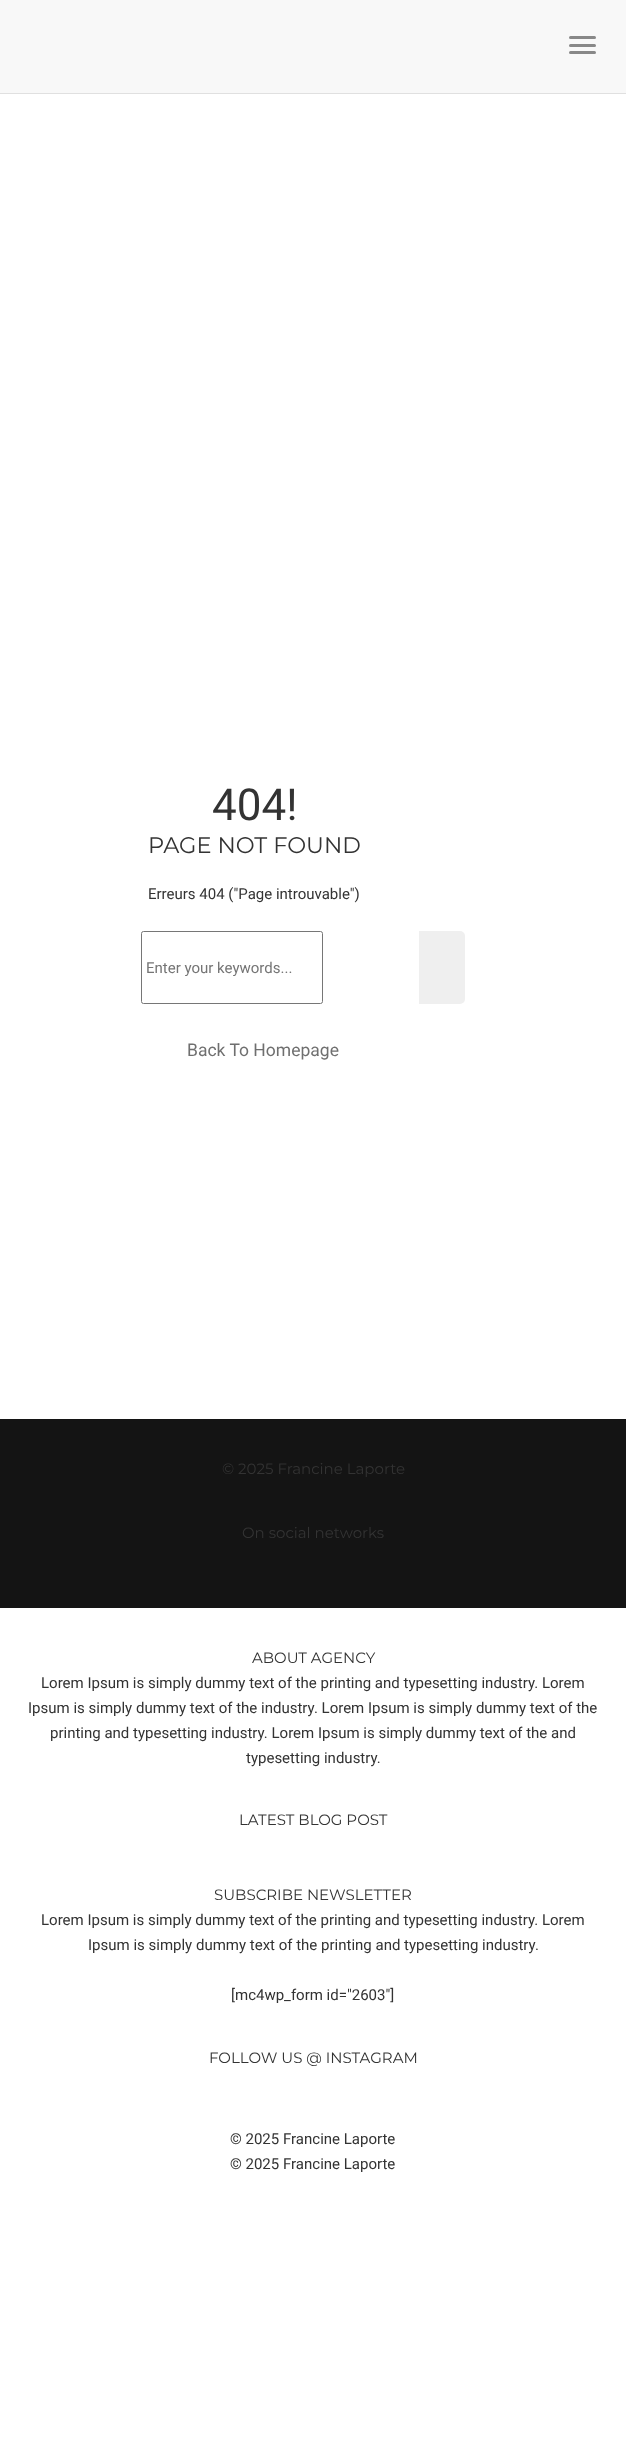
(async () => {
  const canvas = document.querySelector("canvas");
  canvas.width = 626;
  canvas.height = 2447;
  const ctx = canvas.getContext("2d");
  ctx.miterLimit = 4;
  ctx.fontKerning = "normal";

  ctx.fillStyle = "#ffffff";
  ctx.fillRect(0, 0, 626, 2447);
  ctx.fillStyle = "#f8f8f8";
  ctx.fillRect(0, 0, 626, 93);
  ctx.fillStyle = "#e0e0e0";
  ctx.fillRect(0, 93, 626, 1);
  ctx.fillStyle = "#888888";
  ctx.beginPath();
  ctx.roundRect(569, 36, 27, 3, 1.5);
  ctx.fill();
  ctx.beginPath();
  ctx.roundRect(569, 44, 27, 3, 1.5);
  ctx.fill();
  ctx.beginPath();
  ctx.roundRect(569, 51, 27, 3, 1.5);
  ctx.fill();
  ctx.beginPath();
  ctx.roundRect(141.5, 931.5, 181, 72, 2);
  ctx.strokeStyle = "#767676";
  ctx.stroke();
  ctx.fillStyle = "#efefef";
  ctx.beginPath();
  ctx.roundRect(419, 931, 46, 73, [0, 5, 5, 0]);
  ctx.fill();
  ctx.fillStyle = "#141414";
  ctx.fillRect(0, 1419, 626, 189);
  ctx.font = "44px Roboto";
  ctx.fillStyle = "#333333";
  ctx.fillText("404!", 212, 820);
  ctx.font = "22.5px Montserrat";
  ctx.fillText("PAGE NOT FOUND", 148, 853);
  ctx.font = "15px Roboto";
  ctx.fillText("Erreurs 404 (\"Page introuvable\")", 148, 899);
  ctx.save();
  ctx.beginPath();
  ctx.rect(146, 959, 172, 17);
  ctx.clip();
  ctx.fillStyle = "#757575";
  ctx.fillText("Enter your keywords...", 146, 973);
  ctx.restore();
  ctx.font = "17.5px Roboto";
  ctx.fillStyle = "#6f6f6f";
  ctx.fillText("Back To Homepage", 187, 1056);
  ctx.font = "15px Montserrat";
  ctx.fillStyle = "#333333";
  for (const [text, x, y] of [
    ["© 2025 Francine Laporte", 222, 1474],
    ["On social networks", 242, 1538],
    ["ABOUT AGENCY", 252, 1663],
  ]) {
    ctx.fillText(text, x, y);
  }
  ctx.font = "15px Roboto";
  for (const [text, x, y] of [
    ["Lorem Ipsum is simply dummy text of the printing and typesetting industry. Lorem", 41, 1688],
    ["Ipsum is simply dummy text of the industry. Lorem Ipsum is simply dummy text of the", 28, 1713],
    ["printing and typesetting industry. Lorem Ipsum is simply dummy text of the and", 50, 1738],
    ["typesetting industry.", 246, 1763],
  ]) {
    ctx.fillText(text, x, y);
  }
  ctx.font = "15px Montserrat";
  ctx.fillText("LATEST BLOG POST", 239, 1825);
  ctx.fillText("SUBSCRIBE NEWSLETTER", 214, 1900);
  ctx.font = "15px Roboto";
  for (const [text, x, y] of [
    ["Lorem Ipsum is simply dummy text of the printing and typesetting industry. Lorem", 41, 1925],
    ["Ipsum is simply dummy text of the printing and typesetting industry.", 88, 1950],
    ["[mc4wp_form id=\"2603\"]", 231, 2000],
  ]) {
    ctx.fillText(text, x, y);
  }
  ctx.font = "15px Montserrat";
  ctx.fillText("FOLLOW US @ INSTAGRAM", 209, 2063);
  ctx.font = "15px Roboto";
  ctx.fillText("© 2025 Francine Laporte", 230, 2144);
  ctx.fillText("© 2025 Francine Laporte", 230, 2169);
})();
